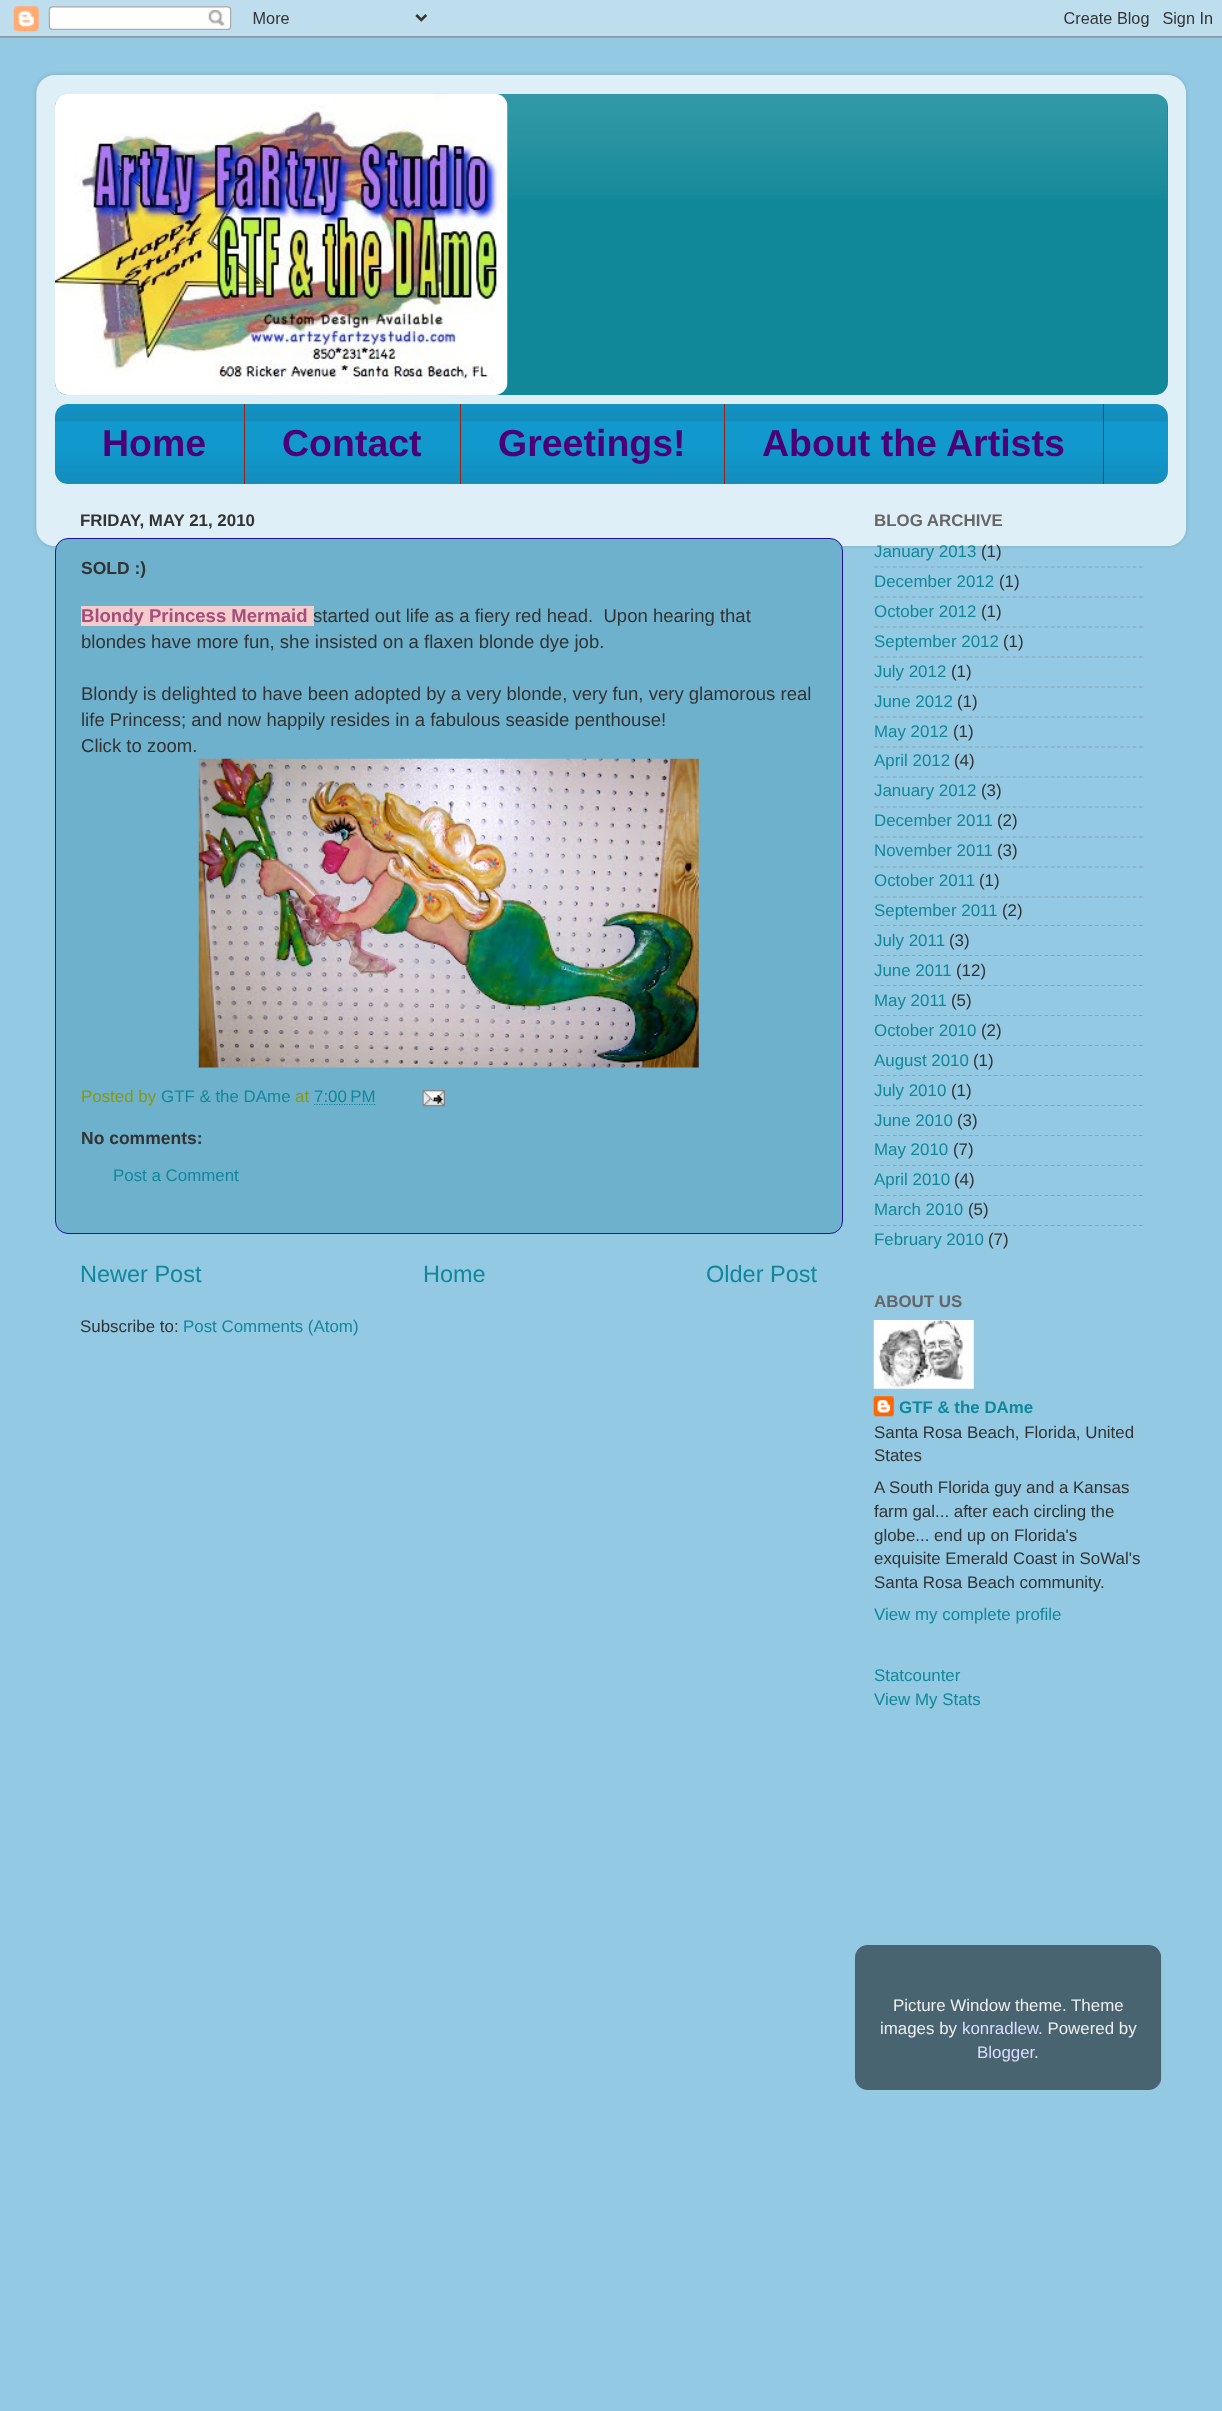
(async () => {
  const canvas = document.querySelector("canvas");
  canvas.width = 1222;
  canvas.height = 2411;
  const ctx = canvas.getContext("2d");
  ctx.miterLimit = 4;
  ctx.fontKerning = "normal";
  async function loadImage(src) {
    const img = new Image();
    img.src = src;
    await img.decode();
    return img;
  }
  let path;

  ctx.fillStyle = "#93c9e3";
  ctx.fillRect(0, 0, 1222, 2411);
  ctx.drawImage(await loadImage("img/1.png"), 0, 0, 1222, 38);
  ctx.save();
  path = new Path2D("M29 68H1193V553H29ZM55 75H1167C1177.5 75 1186 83.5 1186 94V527C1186 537.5 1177.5 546 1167 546H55C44.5 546 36 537.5 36 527V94C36 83.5 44.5 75 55 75Z");
  ctx.clip(path, "evenodd");
  ctx.fillStyle = "rgba(0, 0, 0, 0.15)";
  ctx.filter = "blur(2px)";
  ctx.beginPath();
  ctx.roundRect(36, 75, 1150, 471, 19);
  ctx.fill();
  ctx.filter = "none";
  ctx.restore();
  ctx.drawImage(await loadImage("img/2.png"), 36, 75, 1151, 472);
  ctx.fillStyle = "#118899";
  ctx.beginPath();
  ctx.roundRect(55, 94, 1113, 301, 13);
  ctx.fill();
  ctx.drawImage(await loadImage("img/3.png"), 55, 94, 1113, 105);
  ctx.drawImage(await loadImage("img/4.png"), 55, 94, 453, 301);
  ctx.fillStyle = "#1198cc";
  ctx.beginPath();
  ctx.roundRect(55, 404, 1113, 80, 13);
  ctx.fill();
  ctx.drawImage(await loadImage("img/5.png"), 55, 404, 1112, 80);
  for (const [x, y, w, h, color] of [
    [244, 404, 1, 80, "#992211"],
    [460, 404, 1, 80, "#992211"],
    [724, 404, 1, 80, "#992211"],
    [1103, 404, 1, 80, "#992211"],
  ]) {
    ctx.fillStyle = color;
    ctx.fillRect(x, y, w, h);
  }
  ctx.fillStyle = "#6eb1cc";
  ctx.beginPath();
  ctx.roundRect(55.5, 538.5, 787, 695, 12.5);
  ctx.fill();
  ctx.strokeStyle = "#221199";
  ctx.stroke();
  ctx.fillStyle = "#f4cccc";
  ctx.fillRect(81, 606, 233, 20);
  ctx.drawImage(await loadImage("img/6.png"), 198, 758, 501, 310);
  path = new Path2D("M314 1104.5H375.5");
  ctx.strokeStyle = "#118899";
  ctx.lineWidth = 1.2;
  ctx.setLineDash([1.25, 1.25]);
  ctx.stroke(path);
  ctx.drawImage(await loadImage("img/7.png"), 422, 1090, 23, 17);
  path = new Path2D("M874 567H1142.5");
  ctx.strokeStyle = "#8aa5b2";
  ctx.setLineDash([3.75, 2.56]);
  ctx.stroke(path);
  path = new Path2D("M874 597H1142.5");
  ctx.stroke(path);
  path = new Path2D("M874 627H1142.5");
  ctx.stroke(path);
  path = new Path2D("M874 657H1142.5");
  ctx.stroke(path);
  path = new Path2D("M874 687H1142.5");
  ctx.stroke(path);
  path = new Path2D("M874 717H1142.5");
  ctx.stroke(path);
  path = new Path2D("M874 747H1142.5");
  ctx.stroke(path);
  path = new Path2D("M874 777H1142.5");
  ctx.stroke(path);
  path = new Path2D("M874 807H1142.5");
  ctx.stroke(path);
  path = new Path2D("M874 837H1142.5");
  ctx.stroke(path);
  path = new Path2D("M874 867H1142.5");
  ctx.stroke(path);
  path = new Path2D("M874 897H1142.5");
  ctx.stroke(path);
  path = new Path2D("M874 925.5H1142.5");
  ctx.stroke(path);
  path = new Path2D("M874 955.5H1142.5");
  ctx.stroke(path);
  path = new Path2D("M874 985.5H1142.5");
  ctx.stroke(path);
  path = new Path2D("M874 1015.5H1142.5");
  ctx.stroke(path);
  path = new Path2D("M874 1045.5H1142.5");
  ctx.stroke(path);
  path = new Path2D("M874 1075.5H1142.5");
  ctx.stroke(path);
  path = new Path2D("M874 1105.5H1142.5");
  ctx.stroke(path);
  path = new Path2D("M874 1135.5H1142.5");
  ctx.stroke(path);
  path = new Path2D("M874 1165.5H1142.5");
  ctx.stroke(path);
  path = new Path2D("M874 1195.5H1142.5");
  ctx.stroke(path);
  path = new Path2D("M874 1225.5H1142.5");
  ctx.stroke(path);
  ctx.drawImage(await loadImage("img/8.png"), 873, 1320, 101, 69);
  ctx.drawImage(await loadImage("img/9.png"), 873, 1396, 21, 21);
  ctx.drawImage(await loadImage("img/10.png"), 855, 1945, 307, 145);
  ctx.font = "bold 37.5px Liberation Sans";
  ctx.fillStyle = "#4c0077";
  for (const [text, x, y] of [
    ["Home", 102, 456],
    ["Contact", 282, 456],
    ["Greetings!", 498, 456],
    ["About the Artists", 762, 456],
  ]) {
    ctx.fillText(text, x, y);
  }
  ctx.font = "bold 16.9px Liberation Sans";
  ctx.fillStyle = "#333333";
  ctx.fillText("FRIDAY, MAY 21, 2010", 80, 526);
  ctx.font = "bold 17.5px Liberation Sans";
  ctx.fillText("SOLD :)", 81, 574);
  ctx.font = "bold 18.55px Liberation Sans";
  ctx.fillStyle = "#a64d79";
  ctx.fillText("Blondy Princess Mermaid", 81, 622);
  ctx.font = "18.55px Liberation Sans";
  ctx.fillStyle = "#333333";
  for (const [text, x, y] of [
    ["started out life as a fiery red head.  Upon hearing that", 313, 622],
    ["blondes have more fun, she insisted on a flaxen blonde dye job.", 81, 648],
    ["Blondy is delighted to have been adopted by a very blonde, very fun, very glamorous real", 81, 700],
    ["life Princess; and now happily resides in a fabulous seaside penthouse!", 81, 726],
    ["Click to zoom.", 81, 752],
  ]) {
    ctx.fillText(text, x, y);
  }
  ctx.font = "16.9px Liberation Sans";
  ctx.fillStyle = "#889911";
  ctx.fillText("Posted by", 81, 1102);
  ctx.fillStyle = "#118899";
  ctx.fillText("GTF & the DAme", 161, 1102);
  ctx.fillStyle = "#889911";
  ctx.fillText("at", 295, 1102);
  ctx.fillStyle = "#118899";
  ctx.fillText("7:00 PM", 314, 1102);
  ctx.font = "bold 17.5px Liberation Sans";
  ctx.fillStyle = "#333333";
  ctx.fillText("No comments:", 81, 1144);
  ctx.font = "16.9px Liberation Sans";
  ctx.fillStyle = "#118899";
  ctx.fillText("Post a Comment", 113, 1181);
  ctx.font = "23.5px Liberation Sans";
  for (const [text, x, y] of [
    ["Newer Post", 80, 1282],
    ["Home", 423, 1282],
    ["Older Post", 706, 1282],
  ]) {
    ctx.fillText(text, x, y);
  }
  ctx.font = "16.9px Liberation Sans";
  ctx.fillStyle = "#333333";
  ctx.fillText("Subscribe to:", 80, 1332);
  ctx.fillStyle = "#118899";
  ctx.fillText("Post Comments (Atom)", 183, 1332);
  ctx.font = "bold 16.9px Liberation Sans";
  ctx.fillStyle = "#666666";
  ctx.fillText("BLOG ARCHIVE", 874, 526);
  ctx.font = "16.9px Liberation Sans";
  ctx.fillStyle = "#118899";
  ctx.fillText("January 2013", 874, 557);
  ctx.fillStyle = "#333333";
  ctx.fillText("(1)", 981, 557);
  ctx.fillStyle = "#118899";
  ctx.fillText("December 2012", 874, 587);
  ctx.fillStyle = "#333333";
  ctx.fillText("(1)", 999, 587);
  ctx.fillStyle = "#118899";
  ctx.fillText("October 2012", 874, 617);
  ctx.fillStyle = "#333333";
  ctx.fillText("(1)", 981, 617);
  ctx.fillStyle = "#118899";
  ctx.fillText("September 2012", 874, 647);
  ctx.fillStyle = "#333333";
  ctx.fillText("(1)", 1003, 647);
  ctx.fillStyle = "#118899";
  ctx.fillText("July 2012", 874, 677);
  ctx.fillStyle = "#333333";
  ctx.fillText("(1)", 951, 677);
  ctx.fillStyle = "#118899";
  ctx.fillText("June 2012", 874, 707);
  ctx.fillStyle = "#333333";
  ctx.fillText("(1)", 957, 707);
  ctx.fillStyle = "#118899";
  ctx.fillText("May 2012", 874, 737);
  ctx.fillStyle = "#333333";
  ctx.fillText("(1)", 953, 737);
  ctx.fillStyle = "#118899";
  ctx.fillText("April 2012", 874, 766);
  ctx.fillStyle = "#333333";
  ctx.fillText("(4)", 954, 766);
  ctx.fillStyle = "#118899";
  ctx.fillText("January 2012", 874, 796);
  ctx.fillStyle = "#333333";
  ctx.fillText("(3)", 981, 796);
  ctx.fillStyle = "#118899";
  ctx.fillText("December 2011", 874, 826);
  ctx.fillStyle = "#333333";
  ctx.fillText("(2)", 997, 826);
  ctx.fillStyle = "#118899";
  ctx.fillText("November 2011", 874, 856);
  ctx.fillStyle = "#333333";
  ctx.fillText("(3)", 997, 856);
  ctx.fillStyle = "#118899";
  ctx.fillText("October 2011", 874, 886);
  ctx.fillStyle = "#333333";
  ctx.fillText("(1)", 979, 886);
  ctx.fillStyle = "#118899";
  ctx.fillText("September 2011", 874, 916);
  ctx.fillStyle = "#333333";
  ctx.fillText("(2)", 1002, 916);
  ctx.fillStyle = "#118899";
  ctx.fillText("July 2011", 874, 946);
  ctx.fillStyle = "#333333";
  ctx.fillText("(3)", 949, 946);
  ctx.fillStyle = "#118899";
  ctx.fillText("June 2011", 874, 976);
  ctx.fillStyle = "#333333";
  ctx.fillText("(12)", 956, 976);
  ctx.fillStyle = "#118899";
  ctx.fillText("May 2011", 874, 1006);
  ctx.fillStyle = "#333333";
  ctx.fillText("(5)", 951, 1006);
  ctx.fillStyle = "#118899";
  ctx.fillText("October 2010", 874, 1036);
  ctx.fillStyle = "#333333";
  ctx.fillText("(2)", 981, 1036);
  ctx.fillStyle = "#118899";
  ctx.fillText("August 2010", 874, 1066);
  ctx.fillStyle = "#333333";
  ctx.fillText("(1)", 973, 1066);
  ctx.fillStyle = "#118899";
  ctx.fillText("July 2010", 874, 1096);
  ctx.fillStyle = "#333333";
  ctx.fillText("(1)", 951, 1096);
  ctx.fillStyle = "#118899";
  ctx.fillText("June 2010", 874, 1126);
  ctx.fillStyle = "#333333";
  ctx.fillText("(3)", 957, 1126);
  ctx.fillStyle = "#118899";
  ctx.fillText("May 2010", 874, 1155);
  ctx.fillStyle = "#333333";
  ctx.fillText("(7)", 953, 1155);
  ctx.fillStyle = "#118899";
  ctx.fillText("April 2010", 874, 1185);
  ctx.fillStyle = "#333333";
  ctx.fillText("(4)", 954, 1185);
  ctx.fillStyle = "#118899";
  ctx.fillText("March 2010", 874, 1215);
  ctx.fillStyle = "#333333";
  ctx.fillText("(5)", 968, 1215);
  ctx.fillStyle = "#118899";
  ctx.fillText("February 2010", 874, 1245);
  ctx.fillStyle = "#333333";
  ctx.fillText("(7)", 988, 1245);
  ctx.font = "bold 16.9px Liberation Sans";
  ctx.fillStyle = "#666666";
  ctx.fillText("ABOUT US", 874, 1307);
  ctx.fillStyle = "#118899";
  ctx.fillText("GTF & the DAme", 899, 1413);
  ctx.font = "16.9px Liberation Sans";
  ctx.fillStyle = "#333333";
  for (const [text, x, y] of [
    ["Santa Rosa Beach, Florida, United", 874, 1438],
    ["States", 874, 1461],
    ["A South Florida guy and a Kansas", 874, 1493],
    ["farm gal... after each circling the", 874, 1517],
    ["globe... end up on Florida's", 874, 1541],
    ["exquisite Emerald Coast in SoWal's", 874, 1564],
    ["Santa Rosa Beach community.", 874, 1588],
  ]) {
    ctx.fillText(text, x, y);
  }
  ctx.fillStyle = "#118899";
  for (const [text, x, y] of [
    ["View my complete profile", 874, 1620],
    ["Statcounter", 874, 1681],
    ["View My Stats", 874, 1705],
  ]) {
    ctx.fillText(text, x, y);
  }
  ctx.fillStyle = "#eeeeee";
  ctx.fillText("Picture Window theme. Theme", 893, 2011);
  ctx.fillText("images by", 880, 2034);
  ctx.fillStyle = "#ddddff";
  ctx.fillText("konradlew", 962, 2034);
  ctx.fillStyle = "#eeeeee";
  ctx.fillText(". Powered by", 1038, 2034);
  ctx.fillStyle = "#ddddff";
  ctx.fillText("Blogger", 977, 2058);
  ctx.fillStyle = "#eeeeee";
  ctx.fillText(".", 1034, 2058);
})();
